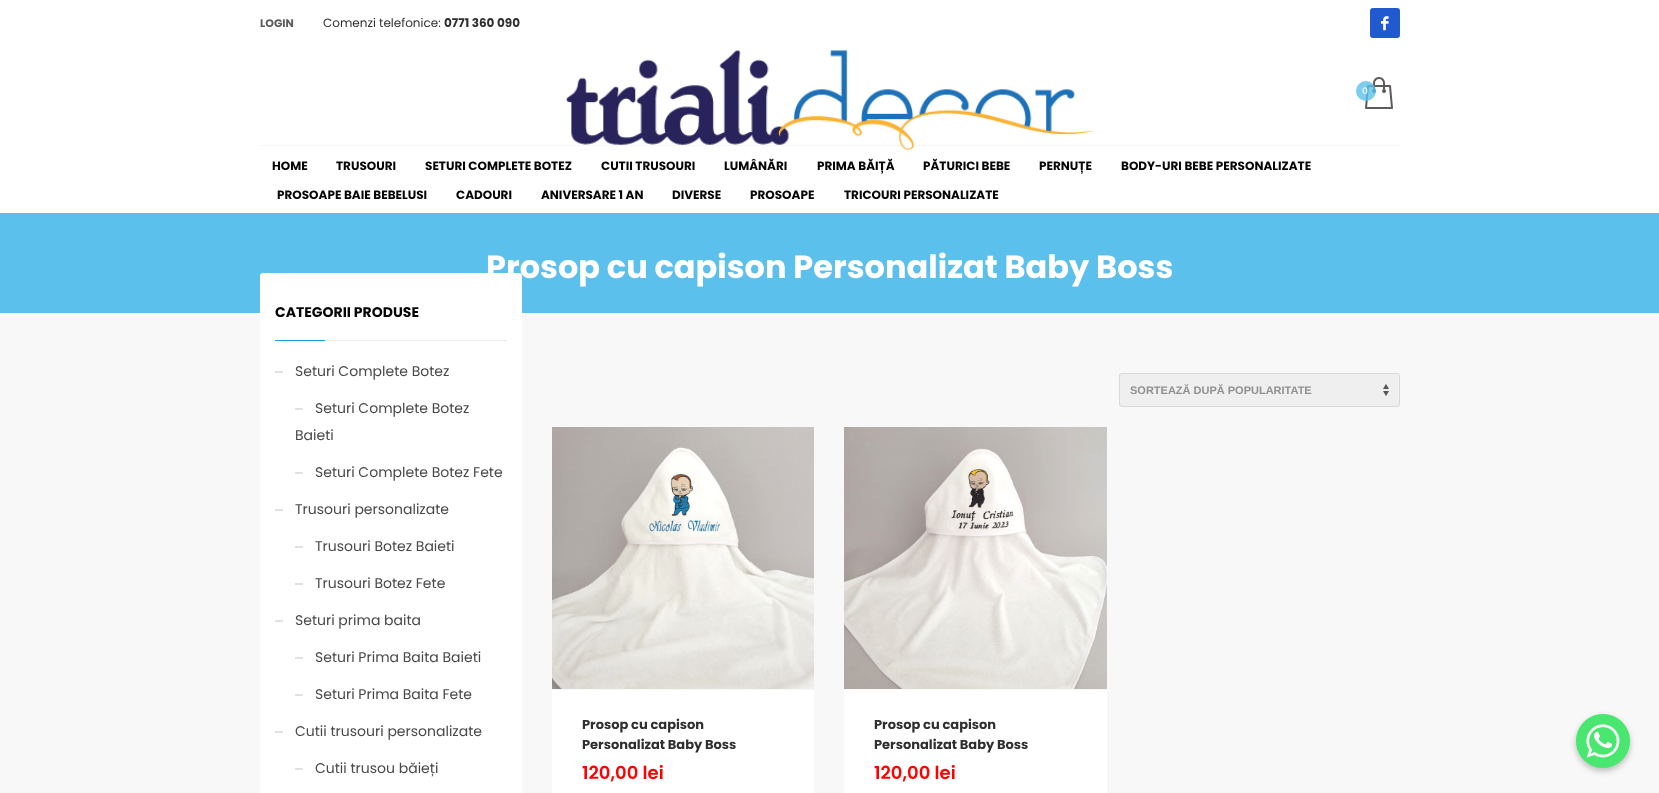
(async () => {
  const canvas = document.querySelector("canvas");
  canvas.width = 1659;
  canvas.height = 793;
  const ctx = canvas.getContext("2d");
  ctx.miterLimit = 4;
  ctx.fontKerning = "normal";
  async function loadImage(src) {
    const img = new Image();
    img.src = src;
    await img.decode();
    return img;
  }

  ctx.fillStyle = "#f8f8f8";
  ctx.fillRect(0, 0, 1659, 793);
  ctx.fillStyle = "#ffffff";
  ctx.fillRect(0, 0, 1659, 213);
  ctx.fillStyle = "#215ace";
  ctx.beginPath();
  ctx.roundRect(1370, 8, 30, 30, 3);
  ctx.fill();
  ctx.drawImage(await loadImage("img/1.png"), 1381, 16, 8, 15);
  ctx.drawImage(await loadImage("img/2.png"), 566, 50, 527, 100);
  ctx.drawImage(await loadImage("img/3.png"), 1365, 77, 28, 32);
  ctx.fillStyle = "rgba(91, 192, 235, 0.8)";
  ctx.beginPath();
  ctx.arc(1366, 91, 10, 0, Math.PI * 2);
  ctx.fill();
  ctx.fillStyle = "rgba(216, 216, 216, 0.2)";
  ctx.fillRect(260, 145, 1140, 1);
  ctx.fillStyle = "#5bc0eb";
  ctx.fillRect(0, 213, 1659, 100);
  ctx.fillStyle = "#ffffff";
  ctx.beginPath();
  ctx.roundRect(260, 273, 262, 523, 3);
  ctx.fill();
  for (const [x, y, w, h, color] of [
    [275, 340, 50, 1, "#1f9fe1"],
    [325, 340, 182, 1, "#ececec"],
    [275, 371, 8, 2, "#e1e1e1"],
    [295, 408, 8, 2, "#e1e1e1"],
    [295, 472, 8, 2, "#e1e1e1"],
    [275, 509, 8, 2, "#e1e1e1"],
    [295, 546, 8, 2, "#e1e1e1"],
    [295, 583, 8, 2, "#e1e1e1"],
    [275, 620, 8, 2, "#e1e1e1"],
    [295, 657, 8, 2, "#e1e1e1"],
    [295, 694, 8, 2, "#e1e1e1"],
    [275, 731, 8, 2, "#e1e1e1"],
    [295, 768, 8, 2, "#e1e1e1"],
  ]) {
    ctx.fillStyle = color;
    ctx.fillRect(x, y, w, h);
  }
  ctx.fillStyle = "#efefef";
  ctx.beginPath();
  ctx.roundRect(1119, 373, 281, 34, 3);
  ctx.fill();
  ctx.drawImage(await loadImage("img/4.png"), 1383, 384, 6, 12);
  ctx.beginPath();
  ctx.roundRect(1119.5, 373.5, 280, 33, 2.5);
  ctx.strokeStyle = "#d9d9d9";
  ctx.stroke();
  ctx.fillStyle = "#ffffff";
  ctx.fillRect(552, 690, 262, 103);
  ctx.drawImage(await loadImage("img/5.png"), 552, 427, 262, 262);
  ctx.fillRect(844, 690, 263, 103);
  ctx.drawImage(await loadImage("img/6.png"), 844, 427, 263, 262);
  ctx.fillStyle = "rgba(0, 0, 0, 0.25)";
  ctx.filter = "blur(3px)";
  ctx.beginPath();
  ctx.roundRect(1576, 717, 54, 54, 27);
  ctx.fill();
  ctx.filter = "none";
  ctx.drawImage(await loadImage("img/7.png"), 1576, 714, 54, 54);
  ctx.font = "bold 11px Poppins";
  ctx.fillStyle = "#5c5c5c";
  ctx.fillText("LOGIN", 260, 27);
  ctx.font = "12px Poppins";
  ctx.fillStyle = "#2f2f2f";
  ctx.fillText("Comenzi telefonice:", 323, 27);
  ctx.font = "bold 12px Poppins";
  ctx.fillText("0771 360 090", 444, 27);
  ctx.font = "600 9px Poppins";
  ctx.fillStyle = "#e3f3fa";
  ctx.fillText("0", 1362, 94);
  ctx.font = "bold 12px Poppins";
  ctx.fillStyle = "#050505";
  for (const [text, x, y] of [
    ["HOME", 272, 170],
    ["TRUSOURI", 336, 170],
    ["SETURI COMPLETE BOTEZ", 425, 170],
    ["CUTII TRUSOURI", 601, 170],
    ["LUMÂNĂRI", 724, 170],
    ["PRIMA BĂIȚĂ", 817, 170],
    ["PĂTURICI BEBE", 923, 170],
    ["PERNUȚE", 1039, 170],
    ["BODY-URI BEBE PERSONALIZATE", 1121, 170],
    ["PROSOAPE BAIE BEBELUSI", 277, 199],
    ["CADOURI", 456, 199],
    ["ANIVERSARE 1 AN", 541, 199],
    ["DIVERSE", 672, 199],
    ["PROSOAPE", 750, 199],
    ["TRICOURI PERSONALIZATE", 844, 199],
  ]) {
    ctx.fillText(text, x, y);
  }
  ctx.font = "bold 32px Poppins";
  ctx.fillStyle = "#ffffff";
  ctx.fillText("Prosop cu capison Personalizat Baby Boss", 486, 278);
  ctx.font = "bold 14px Poppins";
  ctx.fillStyle = "#050505";
  ctx.fillText("CATEGORII PRODUSE", 275, 317);
  ctx.font = "14px Poppins";
  ctx.fillStyle = "#484848";
  for (const [text, x, y] of [
    ["Seturi Complete Botez", 295, 376],
    ["Seturi Complete Botez", 315, 413],
    ["Baieti", 295, 440],
    ["Seturi Complete Botez Fete", 315, 477],
    ["Trusouri personalizate", 295, 514],
    ["Trusouri Botez Baieti", 315, 551],
    ["Trusouri Botez Fete", 315, 588],
    ["Seturi prima baita", 295, 625],
    ["Seturi Prima Baita Baieti", 315, 662],
    ["Seturi Prima Baita Fete", 315, 699],
    ["Cutii trusouri personalizate", 295, 736],
    ["Cutii trusou băieți", 315, 773],
  ]) {
    ctx.fillText(text, x, y);
  }
  ctx.font = "bold 11px Liberation Sans";
  ctx.fillStyle = "#909090";
  ctx.fillText("SORTEAZĂ DUPĂ POPULARITATE", 1130, 394);
  ctx.font = "bold 13px Poppins";
  ctx.fillStyle = "#2f2f2f";
  ctx.fillText("Prosop cu capison", 582, 729);
  ctx.fillText("Personalizat Baby Boss", 582, 749);
  ctx.font = "600 18px Poppins";
  ctx.fillStyle = "#ff0000";
  ctx.fillText("120,00 lei", 582, 779);
  ctx.font = "bold 13px Poppins";
  ctx.fillStyle = "#2f2f2f";
  ctx.fillText("Prosop cu capison", 874, 729);
  ctx.fillText("Personalizat Baby Boss", 874, 749);
  ctx.font = "600 18px Poppins";
  ctx.fillStyle = "#ff0000";
  ctx.fillText("120,00 lei", 874, 779);
})();
